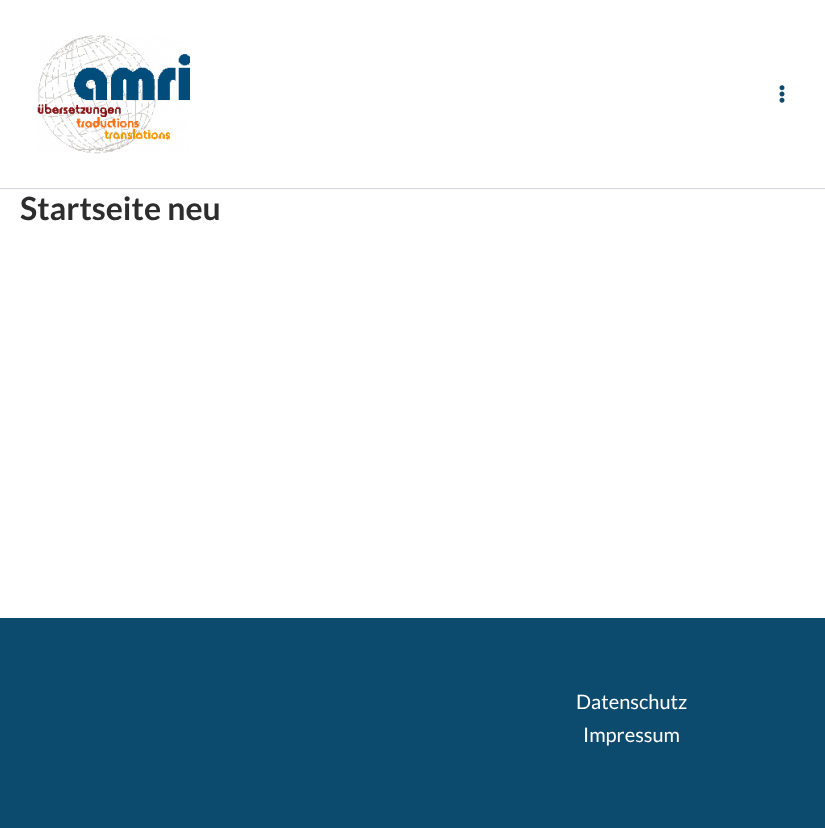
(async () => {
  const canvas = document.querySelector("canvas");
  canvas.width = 825;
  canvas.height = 828;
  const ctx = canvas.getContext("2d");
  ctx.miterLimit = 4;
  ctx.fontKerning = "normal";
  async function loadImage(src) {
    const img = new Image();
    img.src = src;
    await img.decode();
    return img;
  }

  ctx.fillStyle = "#ffffff";
  ctx.fillRect(0, 0, 825, 828);
  ctx.fillStyle = "#d1d5db";
  ctx.fillRect(0, 188, 825, 1);
  ctx.drawImage(await loadImage("img/1.png"), 37, 35, 153, 119);
  ctx.drawImage(await loadImage("img/2.png"), 779, 85, 6, 18);
  ctx.fillStyle = "#0c4a6e";
  ctx.fillRect(0, 618, 825, 210);
  ctx.font = "bold 32px Lato";
  ctx.fillStyle = "#2d2d2d";
  ctx.fillText("Startseite neu", 20, 220);
  ctx.font = "20px Lato";
  ctx.fillStyle = "#ffffff";
  ctx.fillText("Datenschutz", 576, 709);
  ctx.fillText("Impressum", 583, 742);
})();
